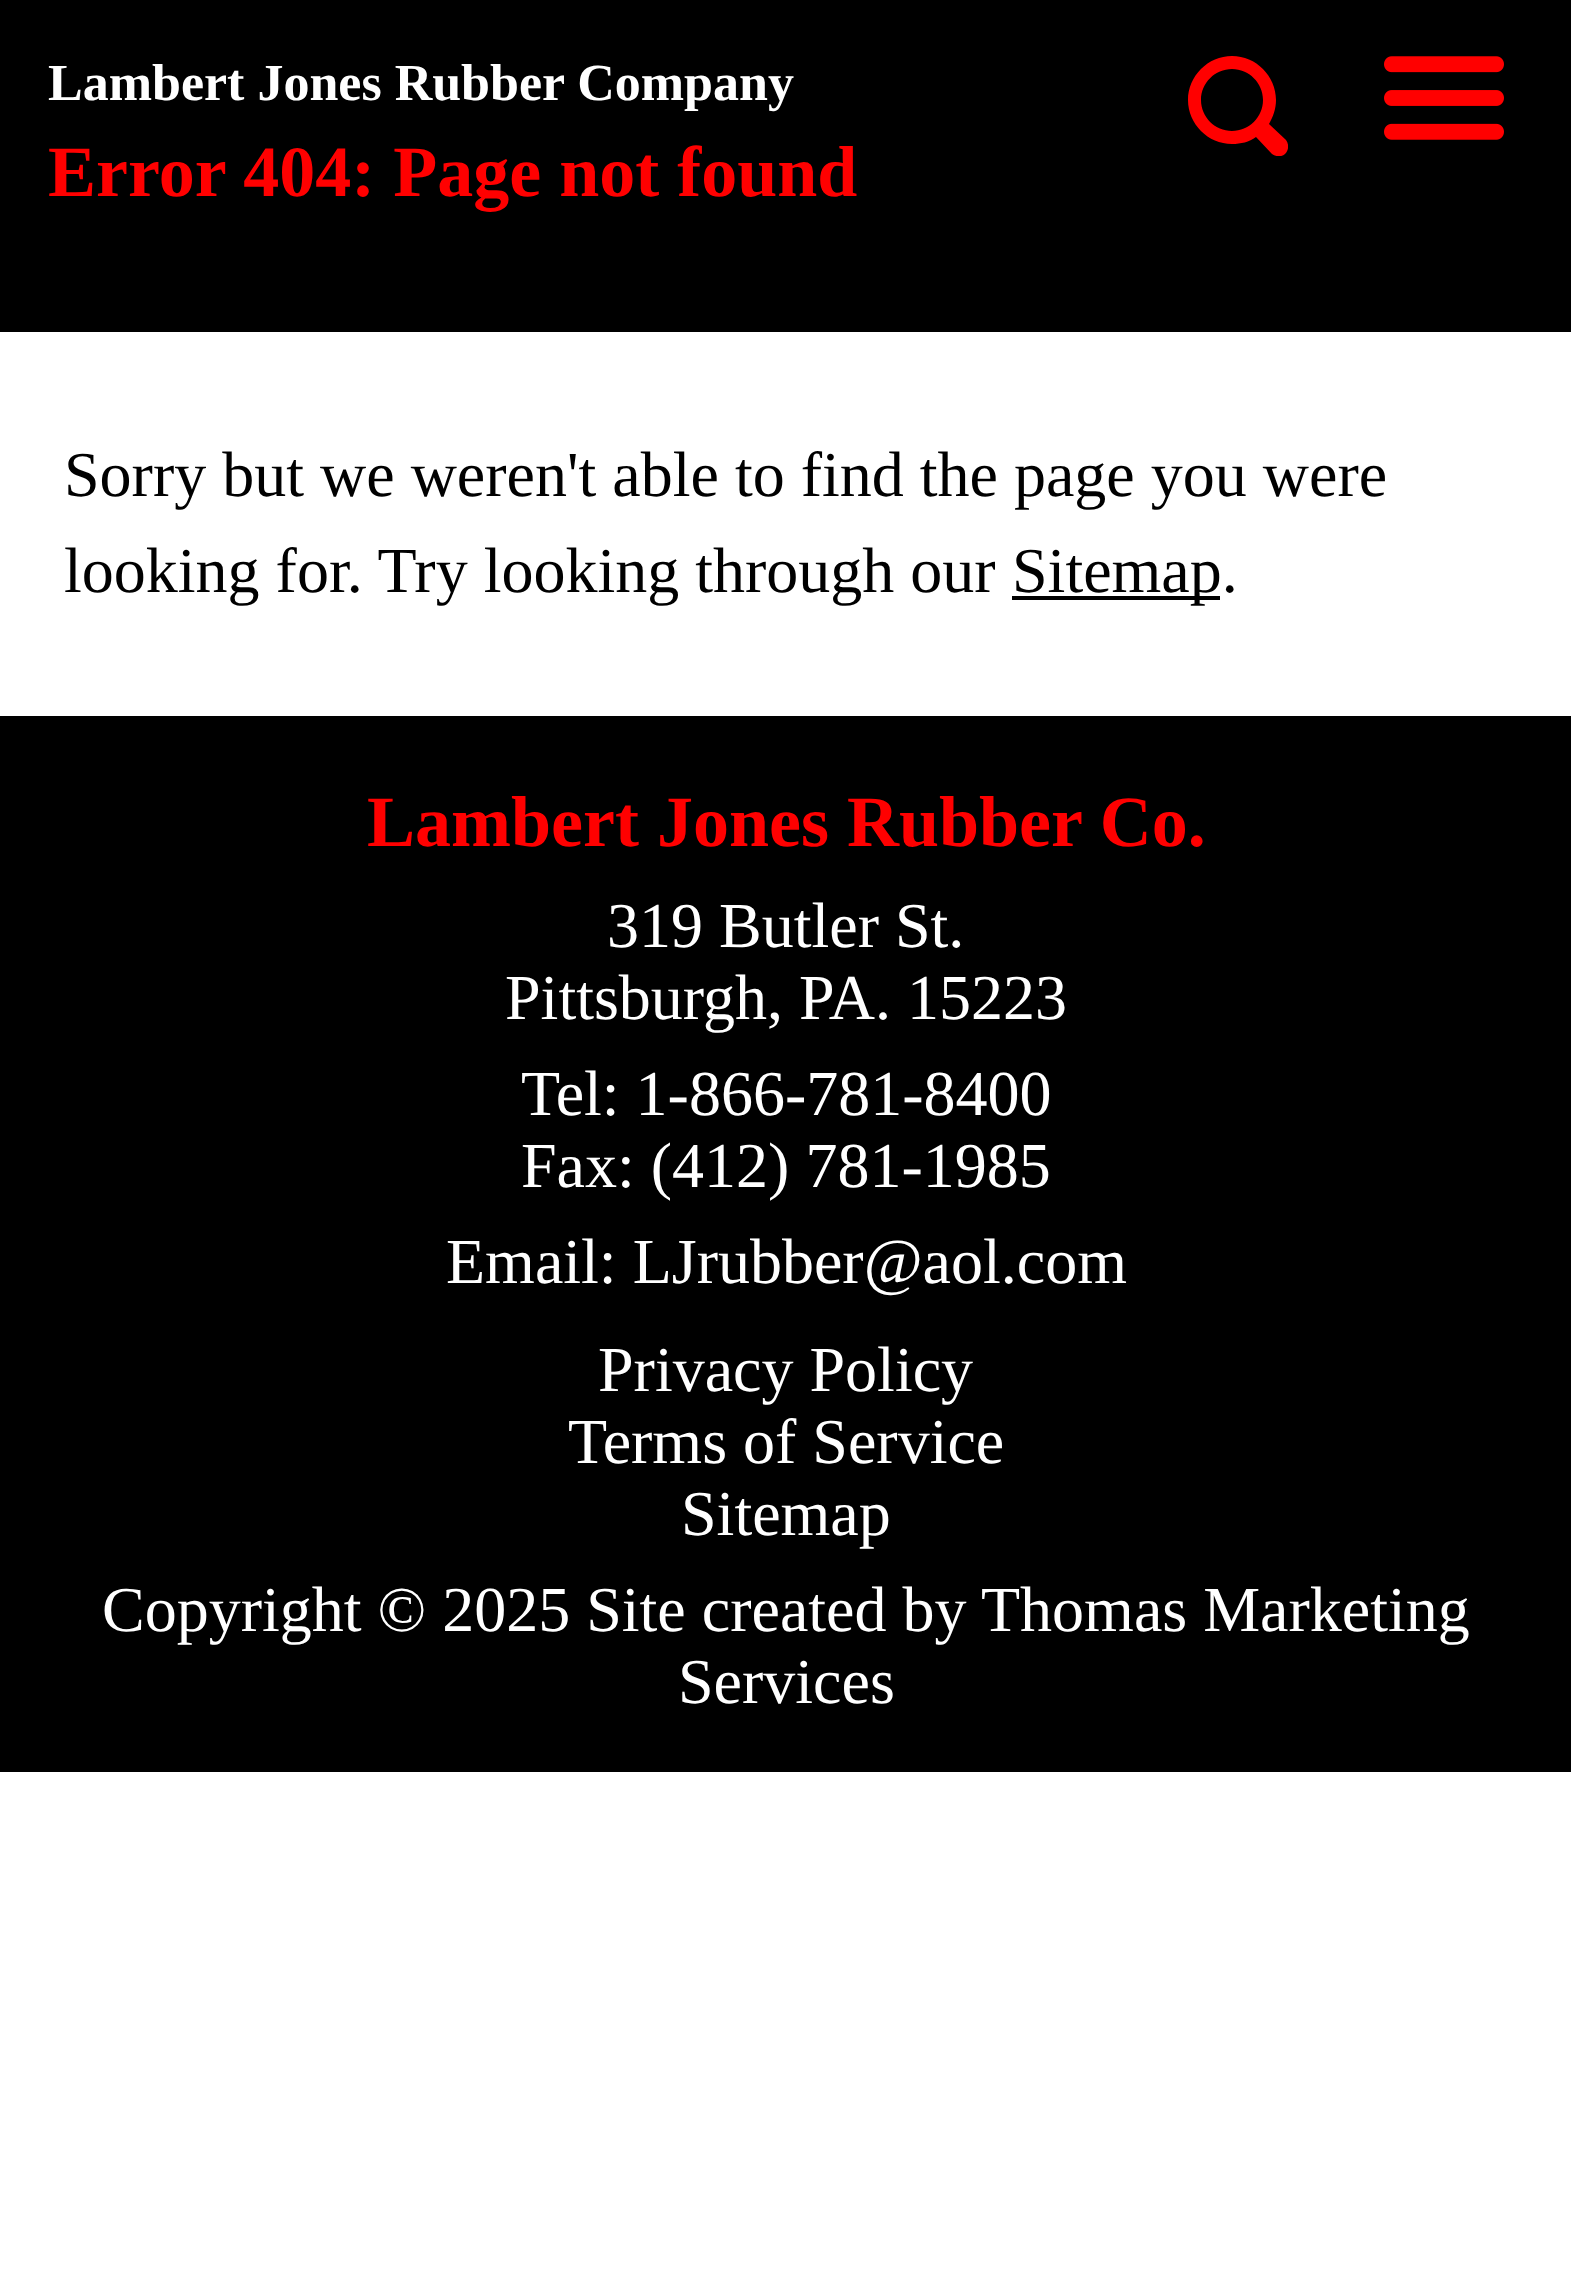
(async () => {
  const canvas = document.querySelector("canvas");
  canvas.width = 1571;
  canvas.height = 2287;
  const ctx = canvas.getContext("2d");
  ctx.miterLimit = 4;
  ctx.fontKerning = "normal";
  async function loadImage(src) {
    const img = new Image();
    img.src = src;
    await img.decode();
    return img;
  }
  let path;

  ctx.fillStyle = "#ffffff";
  ctx.fillRect(0, 0, 1571, 2287);
  ctx.fillStyle = "#000000";
  ctx.fillRect(0, 0, 1571, 332);
  ctx.save();
  ctx.beginPath();
  ctx.rect(1188, 56, 100, 100);
  ctx.clip();
  ctx.fillStyle = "#ff0000";
  path = new Path2D("M1285 154C1282 157 1276 157 1272 154L1256 137C1249 142 1241 144 1232 144C1208 144 1188 124 1188 100C1188 76 1208 56 1232 56C1256 56 1276 76 1276 100C1276 109 1273 117 1269 124L1286 140C1289 144 1289 150 1285 154ZM1232 69C1215 69 1201 83 1201 100C1201 117 1215 131 1232 131C1249 131 1263 117 1263 100C1263 83 1249 69 1232 69Z");
  ctx.fill(path);
  ctx.restore();
  ctx.drawImage(await loadImage("img/1.png"), 1384, 56, 120, 84);
  ctx.fillRect(1012, 596, 208, 4);
  ctx.fillRect(0, 716, 1571, 1056);
  ctx.font = "bold 52px Liberation Serif";
  ctx.fillStyle = "#ffffff";
  ctx.fillText("Lambert Jones Rubber Company", 48, 100);
  ctx.font = "bold 72px Liberation Serif";
  ctx.fillStyle = "#ff0000";
  ctx.fillText("Error 404: Page not found", 48, 196);
  ctx.font = "64px Liberation Serif";
  ctx.fillStyle = "#000000";
  for (const [text, x, y] of [
    ["Sorry but we weren't able to find the page you were", 64, 496],
    ["looking for. Try looking through our", 64, 592],
    ["Sitemap.", 1012, 592],
  ]) {
    ctx.fillText(text, x, y);
  }
  ctx.font = "bold 72px Liberation Serif";
  ctx.fillStyle = "#ff0000";
  ctx.fillText("Lambert Jones Rubber Co.", 367, 846);
  ctx.font = "64px Liberation Serif";
  ctx.fillStyle = "#ffffff";
  for (const [text, x, y] of [
    ["319 Butler St.", 607, 947],
    ["Pittsburgh, PA. 15223", 505, 1019],
    ["Tel: 1-866-781-8400", 521, 1115],
    ["Fax: (412) 781-1985", 521, 1187],
    ["Email: LJrubber@aol.com", 446, 1283],
    ["Privacy Policy", 598, 1391],
    ["Terms of Service", 568, 1463],
    ["Sitemap", 681, 1535],
    ["Copyright © 2025 Site created by", 102, 1631],
    ["Thomas Marketing", 981, 1631],
    ["Services", 678, 1703],
  ]) {
    ctx.fillText(text, x, y);
  }
})();
